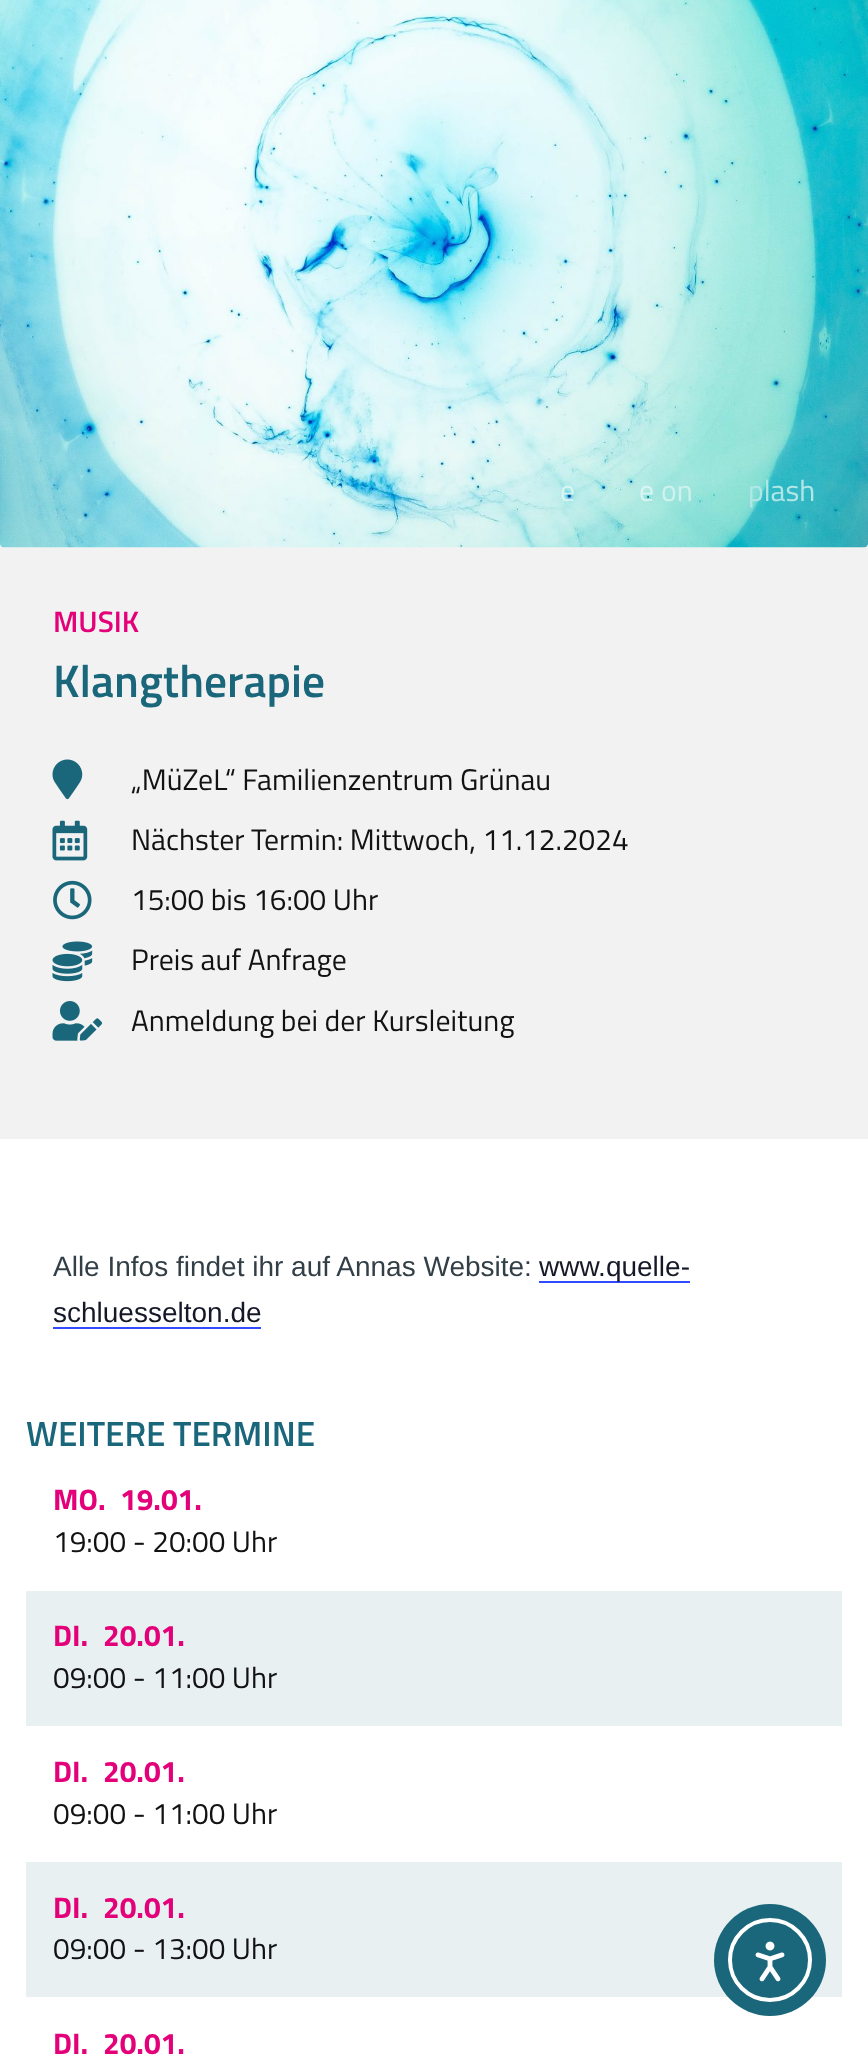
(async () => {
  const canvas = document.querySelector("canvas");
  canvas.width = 868;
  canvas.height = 2057;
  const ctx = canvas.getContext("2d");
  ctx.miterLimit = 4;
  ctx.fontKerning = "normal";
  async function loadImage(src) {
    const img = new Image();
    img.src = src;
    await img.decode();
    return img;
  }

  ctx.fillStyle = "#ffffff";
  ctx.fillRect(0, 0, 868, 2057);
  ctx.fillStyle = "#f2f2f2";
  ctx.fillRect(0, 544, 868, 595);
  ctx.drawImage(await loadImage("img/1.png"), 0, 0, 868, 548);
  ctx.drawImage(await loadImage("img/2.png"), 52, 759, 31, 41);
  ctx.drawImage(await loadImage("img/3.png"), 52, 820, 36, 41);
  ctx.drawImage(await loadImage("img/4.png"), 53, 880, 39, 40);
  ctx.drawImage(await loadImage("img/5.png"), 52, 941, 41, 41);
  ctx.drawImage(await loadImage("img/6.png"), 52, 1001, 50, 40);
  for (const [x, y, w, h, color] of [
    [539, 1281, 151, 2, "#334aff"],
    [53, 1327, 208, 2, "#334aff"],
    [26, 1591, 816, 135, "#e8f0f2"],
    [26, 1862, 816, 135, "#e8f0f2"],
  ]) {
    ctx.fillStyle = color;
    ctx.fillRect(x, y, w, h);
  }
  ctx.fillStyle = "#1a677b";
  ctx.beginPath();
  ctx.arc(770, 1960, 56, 0, Math.PI * 2);
  ctx.fill();
  ctx.beginPath();
  ctx.arc(770, 1960, 40, 0, Math.PI * 2);
  ctx.strokeStyle = "#ffffff";
  ctx.lineWidth = 4;
  ctx.stroke();
  ctx.drawImage(await loadImage("img/7.png"), 755, 1941, 30, 41);
  ctx.font = "29.75px Titillium Web";
  ctx.fillStyle = "#daf5f3";
  ctx.fillText("e", 560, 501);
  ctx.fillText("e", 639, 501);
  ctx.fillStyle = "#cff2ee";
  ctx.fillText("on", 661, 501);
  ctx.fillStyle = "#b1e7e6";
  ctx.fillText("plash", 748, 501);
  ctx.font = "600 29.75px Titillium Web";
  ctx.fillStyle = "#e30078";
  ctx.fillText("MUSIK", 53, 632);
  ctx.font = "600 45.5px Titillium Web";
  ctx.fillStyle = "#1a677b";
  ctx.fillText("Klangtherapie", 53, 697);
  ctx.font = "29.75px Titillium Web";
  ctx.fillStyle = "#121212";
  for (const [text, x, y] of [
    ["„MüZeL“ Familienzentrum Grünau", 131, 790],
    ["Nächster Termin: Mittwoch, 11.12.2024", 131, 850],
    ["15:00 bis 16:00 Uhr", 131, 910],
    ["Preis auf Anfrage", 131, 970],
    ["Anmeldung bei der Kursleitung", 131, 1031],
  ]) {
    ctx.fillText(text, x, y);
  }
  ctx.font = "28px Liberation Sans";
  ctx.fillStyle = "#333f47";
  ctx.fillText("Alle Infos findet ihr auf Annas Website:", 53, 1276);
  ctx.fillStyle = "#141827";
  ctx.fillText("www.quelle-", 539, 1276);
  ctx.fillText("schluesselton.de", 53, 1322);
  ctx.font = "600 35px Titillium Web";
  ctx.fillStyle = "#1a677b";
  ctx.fillText("WEITERE TERMINE", 26, 1446);
  ctx.font = "bold 29.75px Titillium Web";
  ctx.fillStyle = "#e30078";
  ctx.fillText("MO.", 53, 1510);
  ctx.fillText("19.01.", 120, 1510);
  ctx.font = "29.75px Titillium Web";
  ctx.fillStyle = "#121212";
  ctx.fillText("19:00 - 20:00 Uhr", 53, 1552);
  ctx.font = "bold 29.75px Titillium Web";
  ctx.fillStyle = "#e30078";
  ctx.fillText("DI.", 53, 1646);
  ctx.fillText("20.01.", 103, 1646);
  ctx.font = "29.75px Titillium Web";
  ctx.fillStyle = "#121212";
  ctx.fillText("09:00 - 11:00 Uhr", 53, 1688);
  ctx.font = "bold 29.75px Titillium Web";
  ctx.fillStyle = "#e30078";
  ctx.fillText("DI.", 53, 1782);
  ctx.fillText("20.01.", 103, 1782);
  ctx.font = "29.75px Titillium Web";
  ctx.fillStyle = "#121212";
  ctx.fillText("09:00 - 11:00 Uhr", 53, 1824);
  ctx.font = "bold 29.75px Titillium Web";
  ctx.fillStyle = "#e30078";
  ctx.fillText("DI.", 53, 1918);
  ctx.fillText("20.01.", 103, 1918);
  ctx.font = "29.75px Titillium Web";
  ctx.fillStyle = "#121212";
  ctx.fillText("09:00 - 13:00 Uhr", 53, 1959);
  ctx.font = "bold 29.75px Titillium Web";
  ctx.fillStyle = "#e30078";
  ctx.fillText("DI.", 53, 2054);
  ctx.fillText("20.01.", 103, 2054);
})();
